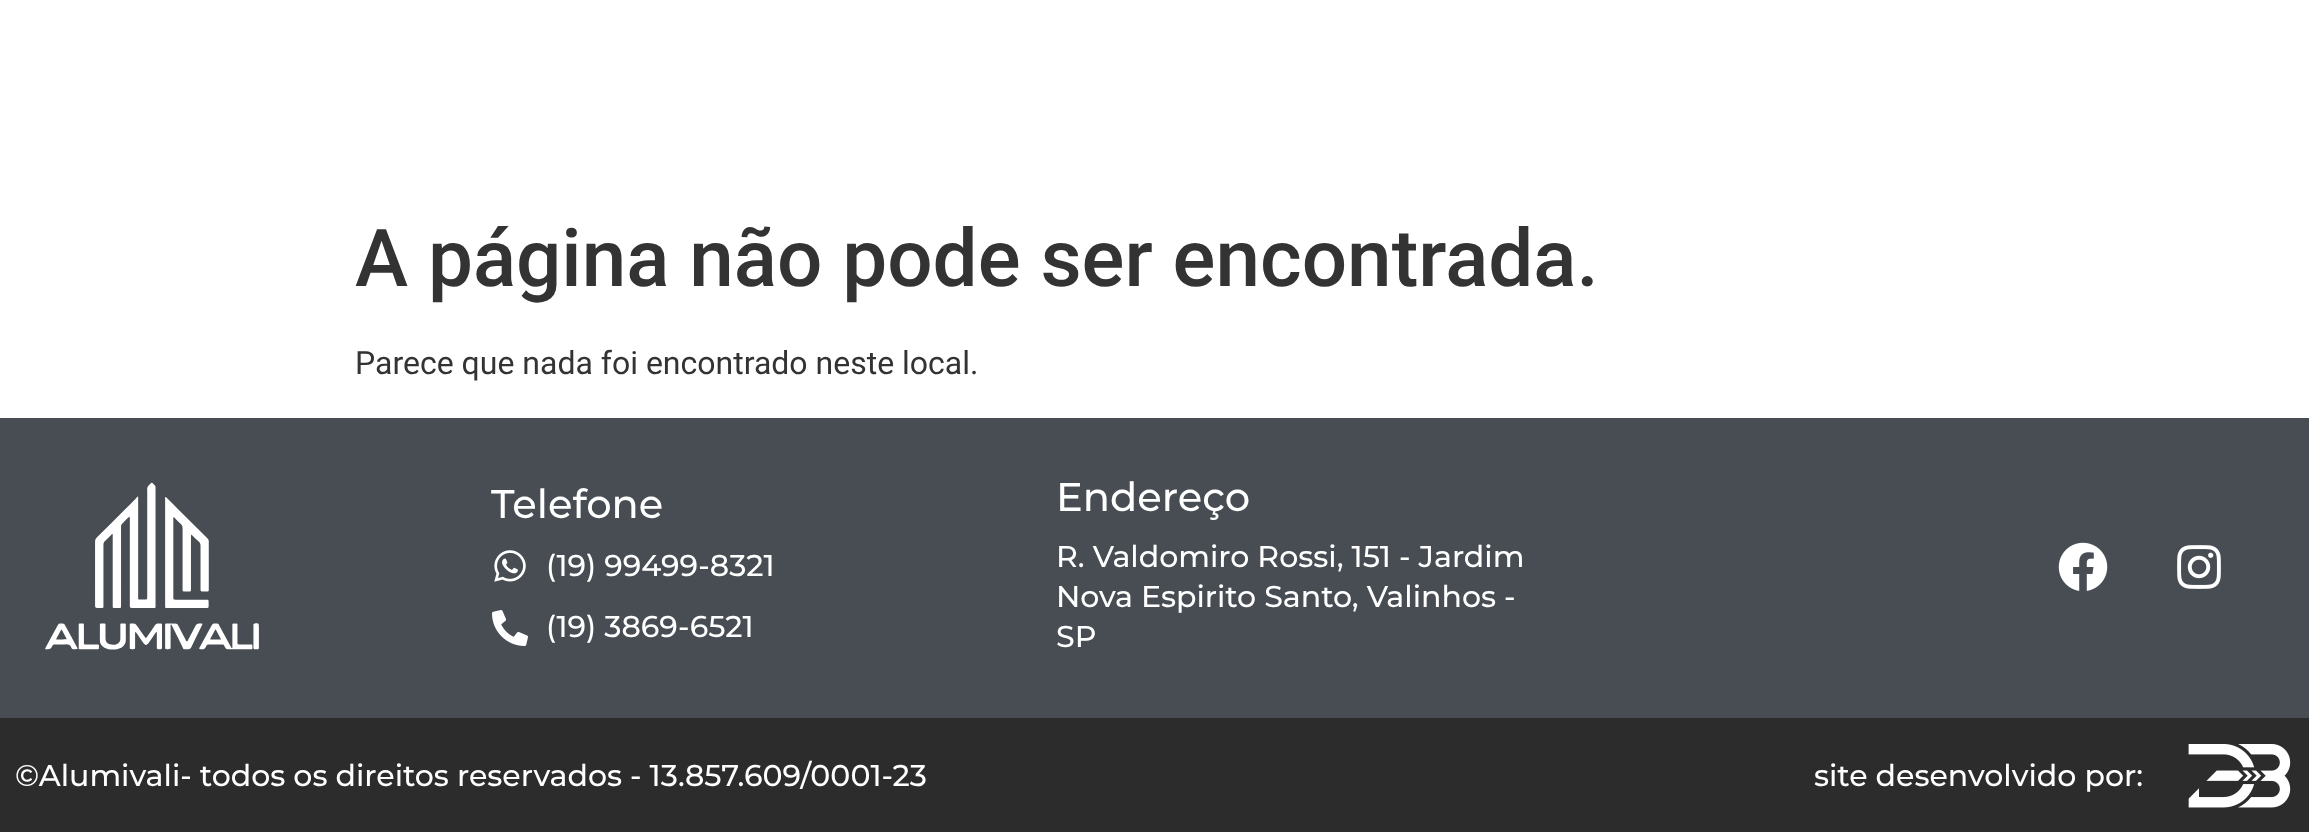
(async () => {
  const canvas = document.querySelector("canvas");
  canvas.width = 2309;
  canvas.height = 838;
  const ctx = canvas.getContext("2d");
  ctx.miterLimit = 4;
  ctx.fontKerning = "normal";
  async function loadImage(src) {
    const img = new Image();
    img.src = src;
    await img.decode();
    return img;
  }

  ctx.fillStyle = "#ffffff";
  ctx.fillRect(0, 0, 2309, 838);
  ctx.fillStyle = "#474d52";
  ctx.fillRect(0, 418, 2309, 300);
  ctx.drawImage(await loadImage("img/1.png"), 45, 482, 214, 168);
  ctx.drawImage(await loadImage("img/2.png"), 494, 550, 32, 32);
  ctx.drawImage(await loadImage("img/3.png"), 492, 610, 36, 36);
  ctx.drawImage(await loadImage("img/4.png"), 2058, 542, 50, 49);
  ctx.drawImage(await loadImage("img/5.png"), 2177, 545, 44, 44);
  ctx.fillStyle = "#2c2c2c";
  ctx.fillRect(0, 718, 2309, 114);
  ctx.drawImage(await loadImage("img/6.png"), 2188, 744, 103, 64);
  ctx.font = "500 80px Roboto";
  ctx.fillStyle = "#333333";
  ctx.fillText("A página não pode ser encontrada.", 355, 286);
  ctx.font = "32px Roboto";
  ctx.fillText("Parece que nada foi encontrado neste local.", 355, 374);
  ctx.font = "500 40px Montserrat";
  ctx.fillStyle = "#ffffff";
  ctx.fillText("Telefone", 491, 518);
  ctx.font = "500 30px Montserrat";
  ctx.fillText("(19) 99499-8321", 546, 576);
  ctx.fillText("(19) 3869-6521", 546, 637);
  ctx.font = "500 40px Montserrat";
  ctx.fillText("Endereço", 1056, 511);
  ctx.font = "500 30px Montserrat";
  for (const [text, x, y] of [
    ["R. Valdomiro Rossi, 151 - Jardim", 1056, 567],
    ["Nova Espirito Santo, Valinhos -", 1056, 607],
    ["SP", 1056, 647],
    ["©Alumivali- todos os direitos reservados - 13.857.609/0001-23", 15, 786],
    ["site desenvolvido por:", 1814, 786],
  ]) {
    ctx.fillText(text, x, y);
  }
})();
